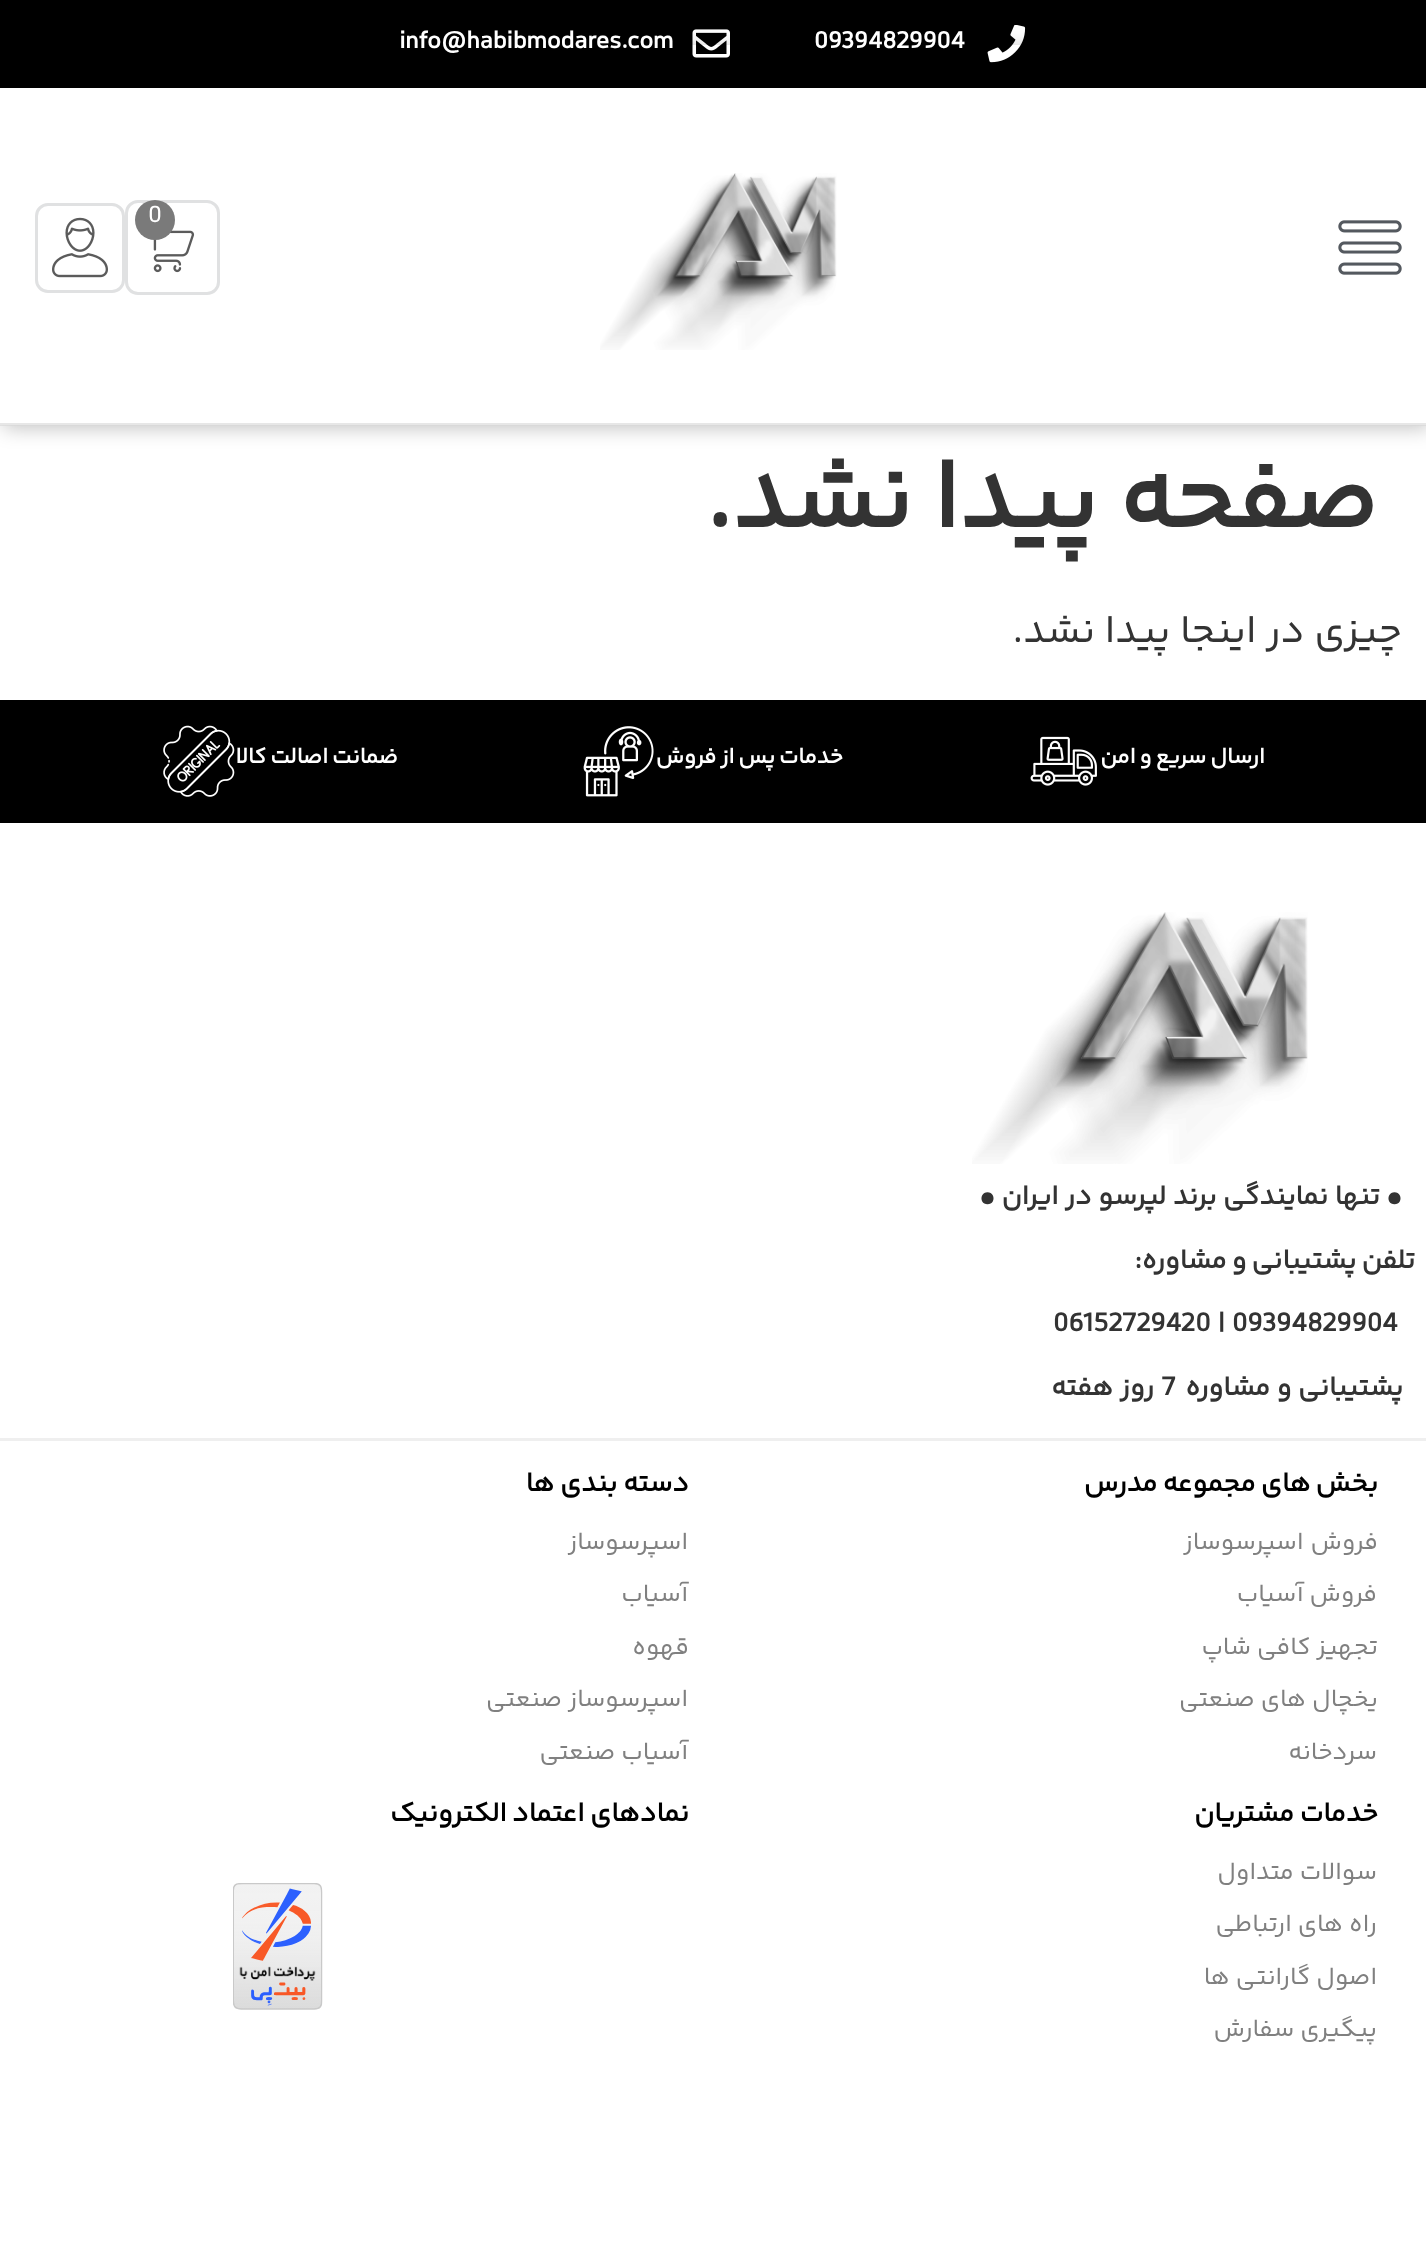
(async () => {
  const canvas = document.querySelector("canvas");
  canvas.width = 1426;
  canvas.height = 2254;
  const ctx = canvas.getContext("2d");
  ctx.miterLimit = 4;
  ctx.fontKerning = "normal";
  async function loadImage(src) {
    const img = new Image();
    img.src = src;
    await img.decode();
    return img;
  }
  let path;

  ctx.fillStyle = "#ffffff";
  ctx.fillRect(0, 0, 1426, 2254);
  ctx.fillStyle = "#000000";
  ctx.fillRect(0, 0, 1426, 88);
  ctx.drawImage(await loadImage("img/1.png"), 987, 25, 39, 38);
  ctx.drawImage(await loadImage("img/2.png"), 692, 29, 38, 29);
  ctx.save();
  path = new Path2D("M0 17H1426V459H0ZM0 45H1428V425H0Z");
  ctx.clip(path, "evenodd");
  ctx.fillStyle = "rgba(0, 0, 0, 0.24)";
  ctx.filter = "blur(10px)";
  ctx.beginPath();
  ctx.rect(3, 48, 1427, 380);
  ctx.fill();
  ctx.filter = "none";
  ctx.restore();
  ctx.fillStyle = "rgba(215, 215, 215, 0.6)";
  ctx.fillRect(0, 423, 1426, 3);
  ctx.drawImage(await loadImage("img/3.png"), 600, 173, 237, 177);
  ctx.beginPath();
  ctx.roundRect(126.5, 201.5, 92, 92, 11.5);
  ctx.strokeStyle = "#e0e1e2";
  ctx.lineWidth = 3;
  ctx.stroke();
  ctx.drawImage(await loadImage("img/4.png"), 153, 230, 42, 43);
  ctx.fillStyle = "#7a7a7a";
  ctx.beginPath();
  ctx.arc(155, 220, 20, 0, Math.PI * 2);
  ctx.fill();
  ctx.beginPath();
  ctx.roundRect(36.5, 204.5, 87, 87, 11.5);
  ctx.stroke();
  ctx.drawImage(await loadImage("img/5.png"), 52, 217, 56, 61);
  ctx.drawImage(await loadImage("img/6.png"), 1338, 220, 64, 55);
  ctx.fillStyle = "#000000";
  ctx.fillRect(0, 700, 1426, 123);
  ctx.drawImage(await loadImage("img/7.png"), 1030, 736, 67, 50);
  ctx.drawImage(await loadImage("img/8.png"), 583, 726, 71, 71);
  ctx.drawImage(await loadImage("img/9.png"), 163, 725, 72, 72);
  ctx.fillStyle = "#efefef";
  ctx.fillRect(0, 1438, 1426, 3);
  ctx.drawImage(await loadImage("img/10.png"), 972, 912, 336, 252);
  ctx.drawImage(await loadImage("img/11.png"), 233, 1883, 90, 127);
  ctx.font = "bold 25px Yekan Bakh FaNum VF";
  ctx.fillStyle = "#ffffff";
  ctx.fillText("09394829904", 814, 48);
  ctx.fillText("info@habibmodares.com", 399, 48);
  ctx.font = "25px Yekan Bakh FaNum VF";
  ctx.fillText("0", 148, 222);
  ctx.wordSpacing = "-3px";
  ctx.direction = "rtl";
  ctx.font = "bold 100px Yekan Bakh FaNum VF";
  ctx.fillStyle = "#333333";
  ctx.fillText("صفحه پیدا نشد.", 1378, 527);
  ctx.wordSpacing = "0px";
  ctx.font = "40px Yekan Bakh FaNum VF";
  ctx.fillText("چیزی در اینجا پیدا نشد.", 1402, 642);
  ctx.wordSpacing = "-1.5px";
  ctx.font = "bold 22.5px Yekan Bakh FaNum VF";
  ctx.fillStyle = "#ffffff";
  for (const [text, x, y] of [
    ["ارسال سریع و امن", 1265, 763],
    ["خدمات پس از فروش", 843, 763],
    ["ضمانت اصالت کالا", 398, 763],
  ]) {
    ctx.fillText(text, x, y);
  }
  ctx.wordSpacing = "0px";
  ctx.font = "bold 27.5px Yekan Bakh FaNum VF";
  ctx.fillStyle = "#333333";
  ctx.fillText("• تنها نمایندگی برند لپرسو در ایران •", 1402, 1204);
  ctx.wordSpacing = "-1.5px";
  ctx.fillText("تلفن پشتیبانی و مشاوره:", 1415, 1268);
  ctx.wordSpacing = "0px";
  ctx.direction = "ltr";
  ctx.fillText("| 09394829904", 1218, 1331);
  ctx.fillText("06152729420", 1053, 1331);
  ctx.direction = "rtl";
  ctx.fillText("پشتیبانی و مشاوره", 1403, 1395);
  ctx.direction = "ltr";
  ctx.fillText("7", 1161, 1395);
  ctx.direction = "rtl";
  ctx.fillText("روز هفته", 1154, 1395);
  ctx.wordSpacing = "-1.5px";
  ctx.fillStyle = "#000000";
  ctx.fillText("بخش های مجموعه مدرس", 1378, 1491);
  ctx.wordSpacing = "1px";
  ctx.font = "25px Yekan Bakh FaNum VF";
  ctx.fillStyle = "#808080";
  ctx.fillText("فروش اسپرسوساز", 1378, 1549);
  ctx.wordSpacing = "0px";
  for (const [text, x, y] of [
    ["فروش آسیاب", 1377, 1601],
    ["تجهیز کافی شاپ", 1378, 1654],
    ["یخچال های صنعتی", 1378, 1706],
    ["سردخانه", 1377, 1759],
  ]) {
    ctx.fillText(text, x, y);
  }
  ctx.wordSpacing = "-1px";
  ctx.font = "bold 27.5px Yekan Bakh FaNum VF";
  ctx.fillStyle = "#000000";
  ctx.fillText("دسته بندی ها", 689, 1491);
  ctx.wordSpacing = "0px";
  ctx.font = "25px Yekan Bakh FaNum VF";
  ctx.fillStyle = "#808080";
  for (const [text, x, y] of [
    ["اسپرسوساز", 688, 1549],
    ["آسیاب", 688, 1601],
    ["قهوه", 689, 1654],
    ["اسپرسوساز صنعتی", 688, 1706],
    ["آسیاب صنعتی", 688, 1759],
  ]) {
    ctx.fillText(text, x, y);
  }
  ctx.wordSpacing = "-1px";
  ctx.font = "bold 27.5px Yekan Bakh FaNum VF";
  ctx.fillStyle = "#000000";
  ctx.fillText("خدمات مشتریان", 1378, 1821);
  ctx.wordSpacing = "0px";
  ctx.font = "25px Yekan Bakh FaNum VF";
  ctx.fillStyle = "#808080";
  for (const [text, x, y] of [
    ["سوالات متداول", 1377, 1879],
    ["راه های ارتباطی", 1377, 1931],
    ["اصول گارانتی ها", 1377, 1984],
    ["پیگیری سفارش", 1377, 2036],
  ]) {
    ctx.fillText(text, x, y);
  }
  ctx.wordSpacing = "-1px";
  ctx.font = "bold 27.5px Yekan Bakh FaNum VF";
  ctx.fillStyle = "#000000";
  ctx.fillText("نمادهای اعتماد الکترونیک", 689, 1821);
})();
